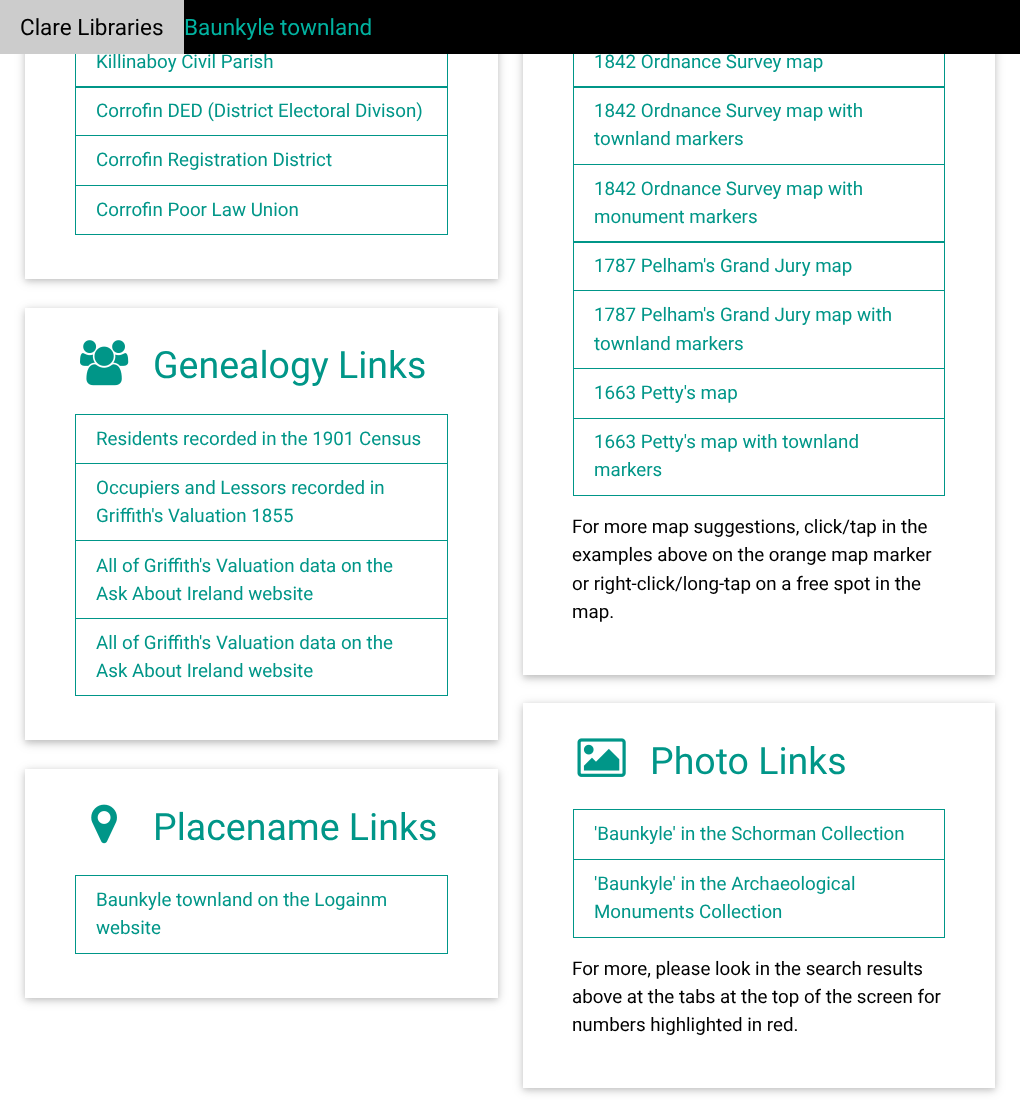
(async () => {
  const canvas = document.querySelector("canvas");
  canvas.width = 1020;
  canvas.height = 1100;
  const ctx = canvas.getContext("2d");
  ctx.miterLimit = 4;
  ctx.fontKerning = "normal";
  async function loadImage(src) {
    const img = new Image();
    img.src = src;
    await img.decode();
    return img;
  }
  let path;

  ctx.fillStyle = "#ffffff";
  ctx.fillRect(0, 0, 1020, 1100);
  ctx.fillStyle = "rgba(0, 0, 0, 0.12)";
  ctx.filter = "blur(6px)";
  ctx.beginPath();
  ctx.rect(25, -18, 473, 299);
  ctx.fill();
  ctx.filter = "none";
  ctx.fillStyle = "rgba(0, 0, 0, 0.16)";
  ctx.filter = "blur(3px)";
  ctx.beginPath();
  ctx.rect(25, -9, 473, 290);
  ctx.fill();
  ctx.filter = "none";
  ctx.fillStyle = "#ffffff";
  ctx.fillRect(25, 54, 473, 225);
  ctx.strokeStyle = "#009688";
  ctx.strokeRect(75.5, 36.5, 372, 51);
  ctx.strokeRect(75.5, 86.5, 372, 49);
  ctx.strokeRect(75.5, 135.5, 372, 50);
  ctx.strokeRect(75.5, 185.5, 372, 49);
  ctx.fillStyle = "rgba(0, 0, 0, 0.12)";
  ctx.filter = "blur(6px)";
  ctx.beginPath();
  ctx.rect(25, 310, 473, 433);
  ctx.fill();
  ctx.filter = "none";
  ctx.fillStyle = "rgba(0, 0, 0, 0.16)";
  ctx.filter = "blur(3px)";
  ctx.beginPath();
  ctx.rect(25, 310, 473, 433);
  ctx.fill();
  ctx.filter = "none";
  ctx.fillStyle = "#ffffff";
  ctx.fillRect(25, 308, 473, 432);
  ctx.drawImage(await loadImage("img/1.png"), 80, 340, 49, 46);
  ctx.strokeRect(75.5, 414.5, 372, 49);
  ctx.strokeRect(75.5, 463.5, 372, 77);
  ctx.strokeRect(75.5, 540.5, 372, 78);
  ctx.strokeRect(75.5, 618.5, 372, 77);
  ctx.fillStyle = "rgba(0, 0, 0, 0.12)";
  ctx.filter = "blur(6px)";
  ctx.beginPath();
  ctx.rect(25, 771, 473, 229);
  ctx.fill();
  ctx.filter = "none";
  ctx.fillStyle = "rgba(0, 0, 0, 0.16)";
  ctx.filter = "blur(3px)";
  ctx.beginPath();
  ctx.rect(25, 771, 473, 229);
  ctx.fill();
  ctx.filter = "none";
  ctx.fillStyle = "#ffffff";
  ctx.fillRect(25, 769, 473, 229);
  ctx.drawImage(await loadImage("img/2.png"), 91, 804, 26, 40);
  ctx.strokeRect(75.5, 875.5, 372, 78);
  ctx.save();
  path = new Path2D("M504 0H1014V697H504ZM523-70H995V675H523Z");
  ctx.clip(path, "evenodd");
  ctx.fillStyle = "rgba(0, 0, 0, 0.12)";
  ctx.filter = "blur(6px)";
  ctx.beginPath();
  ctx.rect(523, -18, 472, 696);
  ctx.fill();
  ctx.filter = "none";
  ctx.restore();
  ctx.save();
  path = new Path2D("M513 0H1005V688H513ZM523-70H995V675H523Z");
  ctx.clip(path, "evenodd");
  ctx.fillStyle = "rgba(0, 0, 0, 0.16)";
  ctx.filter = "blur(3px)";
  ctx.beginPath();
  ctx.rect(523, -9, 472, 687);
  ctx.fill();
  ctx.filter = "none";
  ctx.restore();
  ctx.strokeRect(573.5, 36.5, 371, 51);
  ctx.strokeRect(573.5, 86.5, 371, 78);
  ctx.strokeRect(573.5, 164.5, 371, 78);
  ctx.strokeRect(573.5, 241.5, 371, 49);
  ctx.strokeRect(573.5, 290.5, 371, 78);
  ctx.strokeRect(573.5, 368.5, 371, 50);
  ctx.strokeRect(573.5, 418.5, 371, 77);
  ctx.fillStyle = "rgba(0, 0, 0, 0.12)";
  ctx.filter = "blur(6px)";
  ctx.beginPath();
  ctx.rect(523, 705, 472, 385);
  ctx.fill();
  ctx.filter = "none";
  ctx.fillStyle = "rgba(0, 0, 0, 0.16)";
  ctx.filter = "blur(3px)";
  ctx.beginPath();
  ctx.rect(523, 705, 472, 385);
  ctx.fill();
  ctx.filter = "none";
  ctx.fillStyle = "#ffffff";
  ctx.fillRect(523, 703, 472, 385);
  ctx.drawImage(await loadImage("img/3.png"), 577, 738, 49, 39);
  ctx.strokeRect(573.5, 809.5, 371, 50);
  ctx.strokeRect(573.5, 859.5, 371, 78);
  ctx.font = "18.75px Roboto";
  ctx.fillStyle = "#009688";
  ctx.fillText("Killinaboy Civil Parish", 96, 68);
  ctx.fillStyle = "#cccccc";
  ctx.fillRect(0, 0, 184, 54);
  ctx.font = "22.5px Roboto";
  ctx.fillStyle = "#000000";
  ctx.fillText("Clare Libraries", 20, 35);
  ctx.font = "18.75px Roboto";
  ctx.fillStyle = "#009688";
  for (const [text, x, y] of [
    ["Corrofin DED (District Electoral Divison)", 96, 117],
    ["Corrofin Registration District", 96, 166],
    ["Corrofin Poor Law Union", 96, 216],
  ]) {
    ctx.fillText(text, x, y);
  }
  ctx.font = "37.5px Roboto";
  ctx.fillText("Genealogy Links", 153, 378);
  ctx.font = "18.75px Roboto";
  for (const [text, x, y] of [
    ["Residents recorded in the 1901 Census", 96, 445],
    ["Occupiers and Lessors recorded in", 96, 494],
    ["Griffith's Valuation 1855", 96, 522],
    ["All of Griffith's Valuation data on the", 96, 572],
    ["Ask About Ireland website", 96, 600],
    ["All of Griffith's Valuation data on the", 96, 649],
    ["Ask About Ireland website", 96, 677],
  ]) {
    ctx.fillText(text, x, y);
  }
  ctx.font = "37.5px Roboto";
  ctx.fillText("Placename Links", 153, 840);
  ctx.font = "18.75px Roboto";
  for (const [text, x, y] of [
    ["Baunkyle townland on the Logainm", 96, 906],
    ["website", 96, 934],
    ["1842 Ordnance Survey map", 594, 68],
  ]) {
    ctx.fillText(text, x, y);
  }
  ctx.fillStyle = "#000000";
  ctx.fillRect(184, 0, 836, 54);
  ctx.font = "22.5px Roboto";
  ctx.fillStyle = "#01b2a0";
  ctx.fillText("Baunkyle townland", 184, 35);
  ctx.font = "18.75px Roboto";
  ctx.fillStyle = "#009688";
  for (const [text, x, y] of [
    ["1842 Ordnance Survey map with", 594, 117],
    ["townland markers", 594, 145],
    ["1842 Ordnance Survey map with", 594, 195],
    ["monument markers", 594, 223],
    ["1787 Pelham's Grand Jury map", 594, 272],
    ["1787 Pelham's Grand Jury map with", 594, 321],
    ["townland markers", 594, 350],
    ["1663 Petty's map", 594, 399],
    ["1663 Petty's map with townland", 594, 448],
    ["markers", 594, 476],
  ]) {
    ctx.fillText(text, x, y);
  }
  ctx.fillStyle = "#000000";
  for (const [text, x, y] of [
    ["For more map suggestions, click/tap in the", 572, 533],
    ["examples above on the orange map marker", 572, 561],
    ["or right-click/long-tap on a free spot in the", 572, 590],
    ["map.", 572, 618],
  ]) {
    ctx.fillText(text, x, y);
  }
  ctx.font = "37.5px Roboto";
  ctx.fillStyle = "#009688";
  ctx.fillText("Photo Links", 650, 774);
  ctx.font = "18.75px Roboto";
  for (const [text, x, y] of [
    ["'Baunkyle' in the Schorman Collection", 594, 840],
    ["'Baunkyle' in the Archaeological", 594, 890],
    ["Monuments Collection", 594, 918],
  ]) {
    ctx.fillText(text, x, y);
  }
  ctx.fillStyle = "#000000";
  for (const [text, x, y] of [
    ["For more, please look in the search results", 572, 975],
    ["above at the tabs at the top of the screen for", 572, 1003],
    ["numbers highlighted in red.", 572, 1031],
  ]) {
    ctx.fillText(text, x, y);
  }
})();
